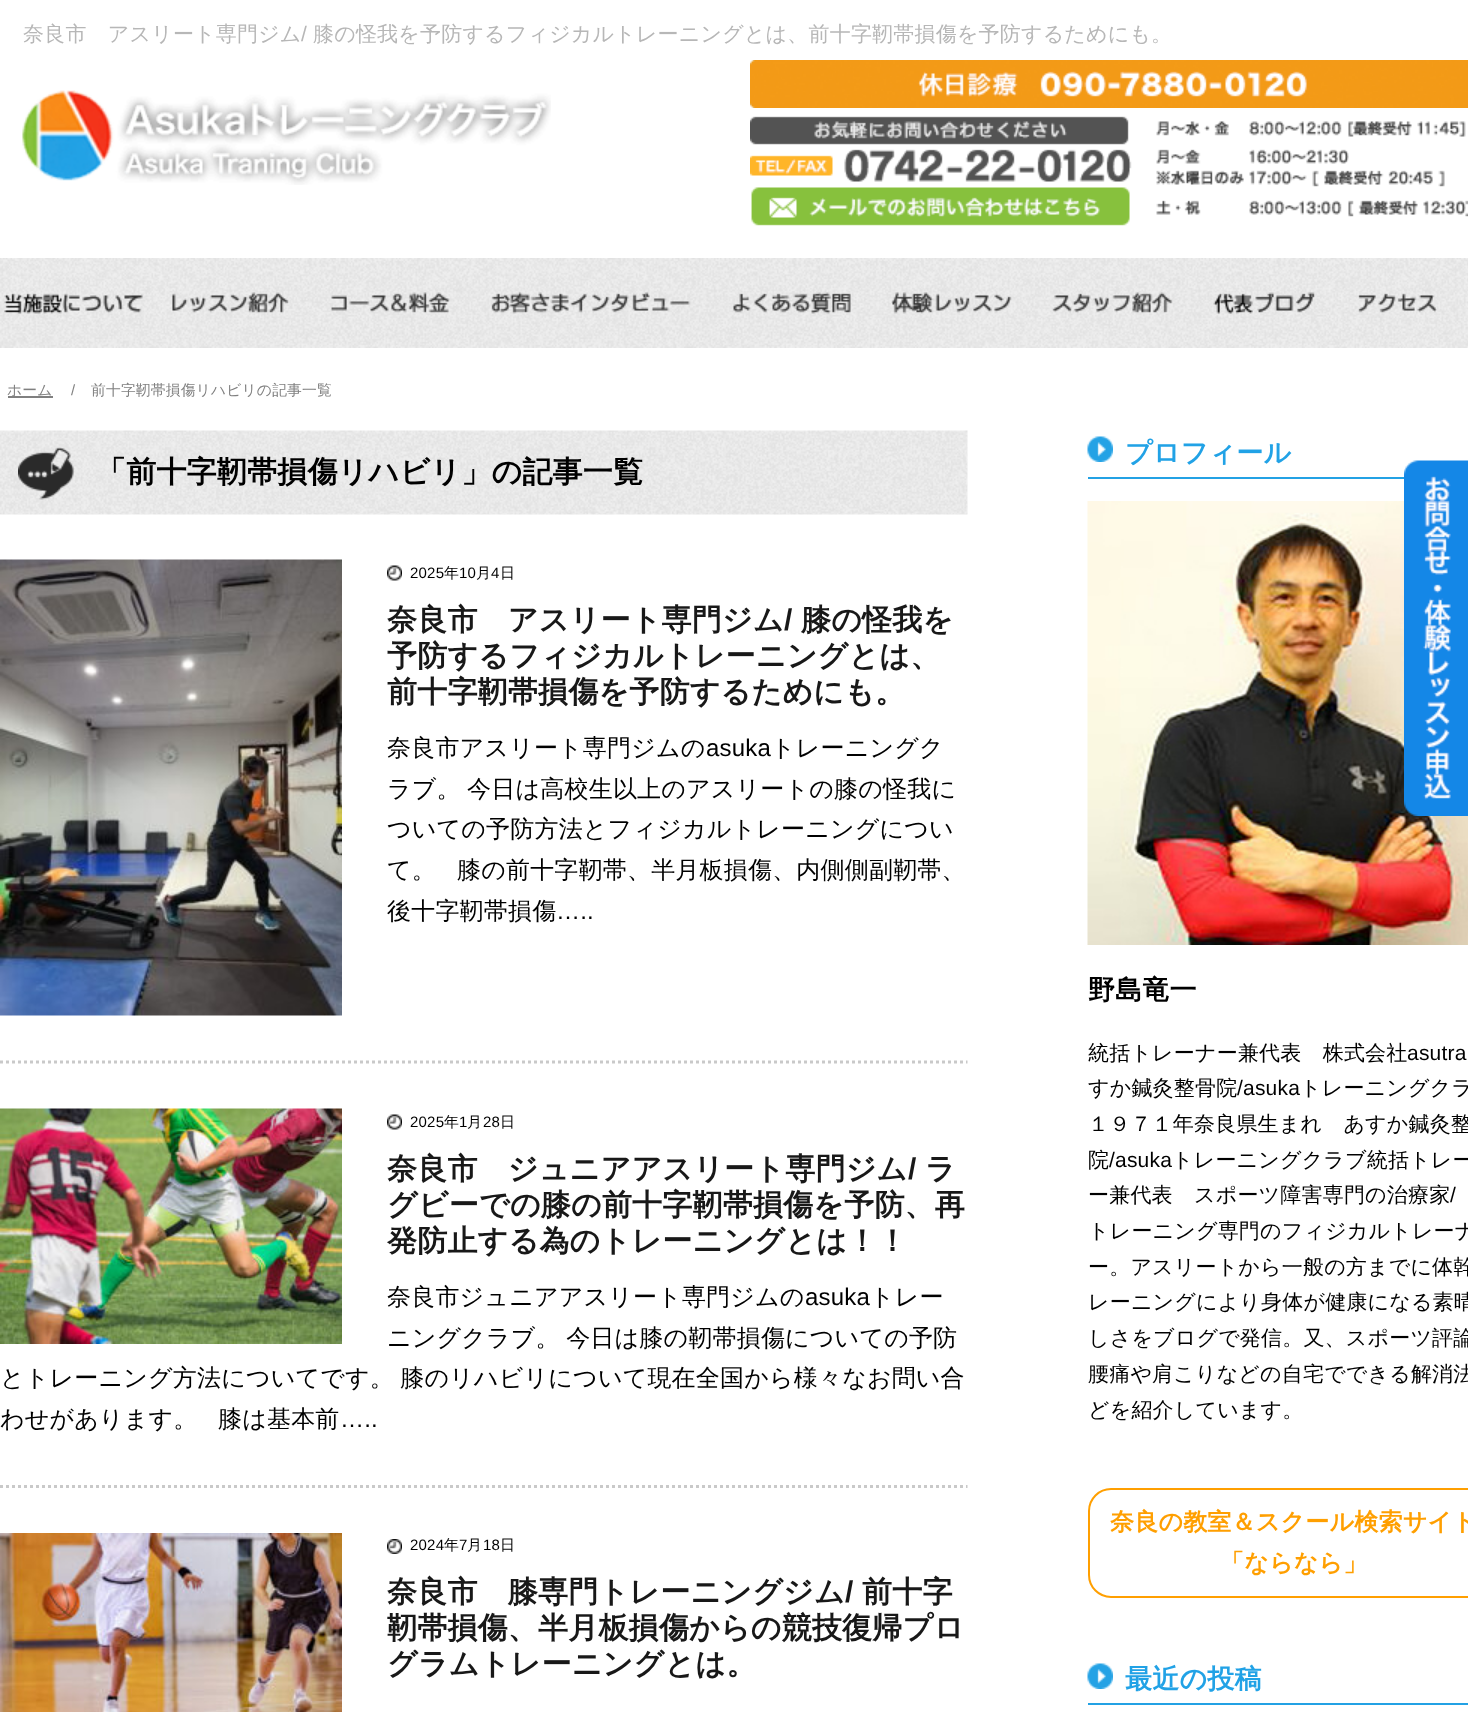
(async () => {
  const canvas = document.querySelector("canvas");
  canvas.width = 1468;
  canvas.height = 1712;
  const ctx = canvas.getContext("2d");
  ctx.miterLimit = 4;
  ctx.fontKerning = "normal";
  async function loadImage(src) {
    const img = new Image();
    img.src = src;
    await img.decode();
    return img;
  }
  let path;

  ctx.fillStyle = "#ffffff";
  ctx.fillRect(0, 0, 1468, 1712);
  ctx.drawImage(await loadImage("img/1.png"), 22, 90, 529, 95);
  ctx.drawImage(await loadImage("img/2.png"), 750, 60, 718, 48);
  ctx.drawImage(await loadImage("img/3.png"), 750, 116, 382, 110);
  ctx.drawImage(await loadImage("img/4.png"), 1156, 121, 312, 96);
  ctx.drawImage(await loadImage("img/5.png"), 0, 258, 1468, 90);
  ctx.drawImage(await loadImage("img/6.png"), 4, 293, 139, 21);
  ctx.drawImage(await loadImage("img/7.png"), 172, 292, 117, 21);
  ctx.drawImage(await loadImage("img/8.png"), 331, 292, 119, 21);
  ctx.drawImage(await loadImage("img/9.png"), 491, 292, 200, 22);
  ctx.drawImage(await loadImage("img/10.png"), 733, 292, 118, 22);
  ctx.drawImage(await loadImage("img/11.png"), 891, 292, 121, 22);
  ctx.drawImage(await loadImage("img/12.png"), 1052, 292, 121, 21);
  ctx.drawImage(await loadImage("img/13.png"), 1213, 292, 102, 22);
  ctx.drawImage(await loadImage("img/14.png"), 1358, 293, 79, 20);
  ctx.fillStyle = "#808080";
  ctx.fillRect(8, 396, 45, 2);
  ctx.drawImage(await loadImage("img/15.png"), 0, 430, 968, 85);
  ctx.drawImage(await loadImage("img/16.png"), 18, 447, 56, 53);
  path = new Path2D("M0 1062H967.5");
  ctx.strokeStyle = "#c9c9c9";
  ctx.lineWidth = 3;
  ctx.setLineDash([3, 3]);
  ctx.stroke(path);
  ctx.drawImage(await loadImage("img/17.png"), 0, 559, 342, 457);
  ctx.drawImage(await loadImage("img/18.png"), 387, 565, 15, 16);
  path = new Path2D("M0 1486.5H967.5");
  ctx.stroke(path);
  ctx.drawImage(await loadImage("img/19.png"), 0, 1108, 342, 236);
  ctx.drawImage(await loadImage("img/18.png"), 387, 1114, 15, 16);
  ctx.drawImage(await loadImage("img/20.png"), 0, 1533, 342, 179);
  ctx.drawImage(await loadImage("img/21.png"), 387, 1539, 15, 15);
  ctx.fillStyle = "#23a1e4";
  ctx.fillRect(1088, 477, 316, 2);
  ctx.drawImage(await loadImage("img/22.png"), 1087, 436, 26, 26);
  ctx.drawImage(await loadImage("img/23.png"), 1087, 501, 381, 444);
  ctx.beginPath();
  ctx.roundRect(1089, 1489, 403, 108, 22);
  ctx.strokeStyle = "#ff9f00";
  ctx.lineWidth = 2;
  ctx.setLineDash([]);
  ctx.stroke();
  ctx.fillRect(1088, 1703, 380, 2);
  ctx.drawImage(await loadImage("img/22.png"), 1087, 1663, 26, 26);
  ctx.drawImage(await loadImage("img/24.png"), 1404, 460, 64, 356);
  ctx.letterSpacing = "0.2px";
  ctx.font = "500 21px WenQuanYi Zen Hei";
  ctx.fillStyle = "#b7b7b7";
  ctx.fillText("奈良市　アスリート専門ジム", 23, 41);
  ctx.font = "21px Liberation Sans";
  ctx.fillText("/", 301, 41);
  ctx.font = "500 21px WenQuanYi Zen Hei";
  ctx.fillText("膝の怪我を予防するフィジカルトレーニングとは、前十字靭帯損傷を予防するためにも。", 313, 41);
  ctx.font = "500 14.75px WenQuanYi Zen Hei";
  ctx.fillStyle = "#808080";
  ctx.fillText("ホーム", 7, 395);
  ctx.font = "14.75px Liberation Sans";
  ctx.fillText("/", 71, 395);
  ctx.font = "500 14.75px WenQuanYi Zen Hei";
  ctx.fillText("前十字靭帯損傷リハビリの記事一覧", 91, 395);
  ctx.font = "bold 30px WenQuanYi Zen Hei";
  ctx.fillStyle = "#000000";
  ctx.fillText("「前十字靭帯損傷リハビリ」の記事一覧", 96, 482);
  ctx.font = "15px Liberation Sans";
  ctx.fillText("2025", 410, 578);
  ctx.font = "500 15px WenQuanYi Zen Hei";
  ctx.fillText("年", 444, 578);
  ctx.font = "15px Liberation Sans";
  ctx.fillText("10", 459, 578);
  ctx.font = "500 15px WenQuanYi Zen Hei";
  ctx.fillText("月", 476, 578);
  ctx.font = "15px Liberation Sans";
  ctx.fillText("4", 491, 578);
  ctx.font = "500 15px WenQuanYi Zen Hei";
  ctx.fillText("日", 500, 578);
  ctx.font = "bold 30px WenQuanYi Zen Hei";
  ctx.fillStyle = "#181818";
  ctx.fillText("奈良市　アスリート専門ジム", 387, 630);
  ctx.font = "bold 30px Liberation Sans";
  ctx.fillText("/", 784, 630);
  ctx.font = "bold 30px WenQuanYi Zen Hei";
  for (const [text, x, y] of [
    ["膝の怪我を", 801, 630],
    ["予防するフィジカルトレーニングとは、", 387, 666],
    ["前十字靭帯損傷を予防するためにも。", 387, 702],
  ]) {
    ctx.fillText(text, x, y);
  }
  ctx.font = "500 24px WenQuanYi Zen Hei";
  ctx.fillStyle = "#000000";
  ctx.fillText("奈良市アスリート専門ジムの", 387, 756);
  ctx.font = "24px Liberation Sans";
  ctx.fillText("asuka", 706, 756);
  ctx.font = "500 24px WenQuanYi Zen Hei";
  ctx.fillText("トレーニングク", 771, 756);
  ctx.wordSpacing = "-1px";
  ctx.fillText("ラブ。 今日は高校生以上のアスリートの膝の怪我に", 387, 797);
  ctx.wordSpacing = "0px";
  for (const [text, x, y] of [
    ["ついての予防方法とフィジカルトレーニングについ", 387, 837],
    ["て。", 387, 878],
    ["膝の前十字靭帯、半月板損傷、内側側副靭帯、", 457, 878],
    ["後十字靭帯損傷", 387, 919],
  ]) {
    ctx.fillText(text, x, y);
  }
  ctx.font = "24px Liberation Sans";
  ctx.fillText("…..", 556, 919);
  ctx.font = "15px Liberation Sans";
  ctx.fillText("2025", 410, 1127);
  ctx.font = "500 15px WenQuanYi Zen Hei";
  ctx.fillText("年", 444, 1127);
  ctx.font = "15px Liberation Sans";
  ctx.fillText("1", 459, 1127);
  ctx.font = "500 15px WenQuanYi Zen Hei";
  ctx.fillText("月", 467, 1127);
  ctx.font = "15px Liberation Sans";
  ctx.fillText("28", 483, 1127);
  ctx.font = "500 15px WenQuanYi Zen Hei";
  ctx.fillText("日", 500, 1127);
  ctx.font = "bold 30px WenQuanYi Zen Hei";
  ctx.fillStyle = "#181818";
  ctx.fillText("奈良市　ジュニアアスリート専門ジム", 387, 1179);
  ctx.font = "bold 30px Liberation Sans";
  ctx.fillText("/", 908, 1179);
  ctx.font = "bold 30px WenQuanYi Zen Hei";
  for (const [text, x, y] of [
    ["ラ", 925, 1179],
    ["グビーでの膝の前十字靭帯損傷を予防、再", 387, 1215],
    ["発防止する為のトレーニングとは！！", 387, 1251],
  ]) {
    ctx.fillText(text, x, y);
  }
  ctx.font = "500 24px WenQuanYi Zen Hei";
  ctx.fillStyle = "#000000";
  ctx.fillText("奈良市ジュニアアスリート専門ジムの", 387, 1305);
  ctx.font = "24px Liberation Sans";
  ctx.fillText("asuka", 805, 1305);
  ctx.font = "500 24px WenQuanYi Zen Hei";
  ctx.fillText("トレー", 870, 1305);
  ctx.wordSpacing = "-1px";
  ctx.fillText("ニングクラブ。 今日は膝の靭帯損傷についての予防", 387, 1346);
  ctx.fillText("とトレーニング方法についてです。 膝のリハビリについて現在全国から様々なお問い合", 0, 1386);
  ctx.wordSpacing = "0px";
  ctx.fillText("わせがあります。", 0, 1427);
  ctx.fillText("膝は基本前", 218, 1427);
  ctx.font = "24px Liberation Sans";
  ctx.fillText("…..", 340, 1427);
  ctx.font = "15px Liberation Sans";
  ctx.fillText("2024", 410, 1550);
  ctx.font = "500 15px WenQuanYi Zen Hei";
  ctx.fillText("年", 444, 1550);
  ctx.font = "15px Liberation Sans";
  ctx.fillText("7", 459, 1550);
  ctx.font = "500 15px WenQuanYi Zen Hei";
  ctx.fillText("月", 467, 1550);
  ctx.font = "15px Liberation Sans";
  ctx.fillText("18", 483, 1550);
  ctx.font = "500 15px WenQuanYi Zen Hei";
  ctx.fillText("日", 500, 1550);
  ctx.font = "bold 30px WenQuanYi Zen Hei";
  ctx.fillStyle = "#181818";
  ctx.fillText("奈良市　膝専門トレーニングジム", 387, 1602);
  ctx.font = "bold 30px Liberation Sans";
  ctx.fillText("/", 845, 1602);
  ctx.font = "bold 30px WenQuanYi Zen Hei";
  for (const [text, x, y] of [
    ["前十字", 862, 1602],
    ["靭帯損傷、半月板損傷からの競技復帰プロ", 387, 1638],
    ["グラムトレーニングとは。", 387, 1674],
  ]) {
    ctx.fillText(text, x, y);
  }
  ctx.font = "bold 27px WenQuanYi Zen Hei";
  ctx.fillStyle = "#21a2e6";
  ctx.fillText("プロフィール", 1125, 462);
  ctx.fillStyle = "#000000";
  ctx.fillText("野島竜一", 1088, 999);
  ctx.font = "500 21px WenQuanYi Zen Hei";
  ctx.fillText("統括トレーナー兼代表　株式会社", 1088, 1060);
  ctx.font = "21px Liberation Sans";
  ctx.fillText("asutra", 1407, 1060);
  ctx.font = "500 21px WenQuanYi Zen Hei";
  ctx.fillText("すか鍼灸整骨院", 1088, 1095);
  ctx.font = "21px Liberation Sans";
  ctx.fillText("/asuka", 1237, 1095);
  ctx.font = "500 21px WenQuanYi Zen Hei";
  for (const [text, x, y] of [
    ["トレーニングクラ", 1300, 1095],
    ["１９７１年奈良県生まれ　あすか鍼灸整", 1088, 1131],
    ["院", 1088, 1167],
  ]) {
    ctx.fillText(text, x, y);
  }
  ctx.font = "21px Liberation Sans";
  ctx.fillText("/asuka", 1109, 1167);
  ctx.font = "500 21px WenQuanYi Zen Hei";
  ctx.fillText("トレーニングクラブ統括トレー", 1172, 1167);
  ctx.fillText("ー兼代表　スポーツ障害専門の治療家", 1088, 1202);
  ctx.font = "21px Liberation Sans";
  ctx.fillText("/", 1450, 1202);
  ctx.font = "500 21px WenQuanYi Zen Hei";
  for (const [text, x, y] of [
    ["トレーニング専門のフィジカルトレーナ", 1088, 1238],
    ["ー。アスリートから一般の方までに体幹", 1088, 1274],
    ["レーニングにより身体が健康になる素晴", 1088, 1309],
    ["しさをブログで発信。又、スポーツ評論", 1088, 1345],
    ["腰痛や肩こりなどの自宅でできる解消法", 1088, 1381],
    ["どを紹介しています。", 1088, 1417],
  ]) {
    ctx.fillText(text, x, y);
  }
  ctx.font = "bold 24px WenQuanYi Zen Hei";
  ctx.fillStyle = "#ff9f00";
  ctx.fillText("奈良の教室＆スクール検索サイト", 1110, 1530);
  ctx.fillText("「ならなら」", 1220, 1571);
  ctx.font = "bold 27px WenQuanYi Zen Hei";
  ctx.fillStyle = "#21a2e6";
  ctx.fillText("最近の投稿", 1125, 1688);
})();
